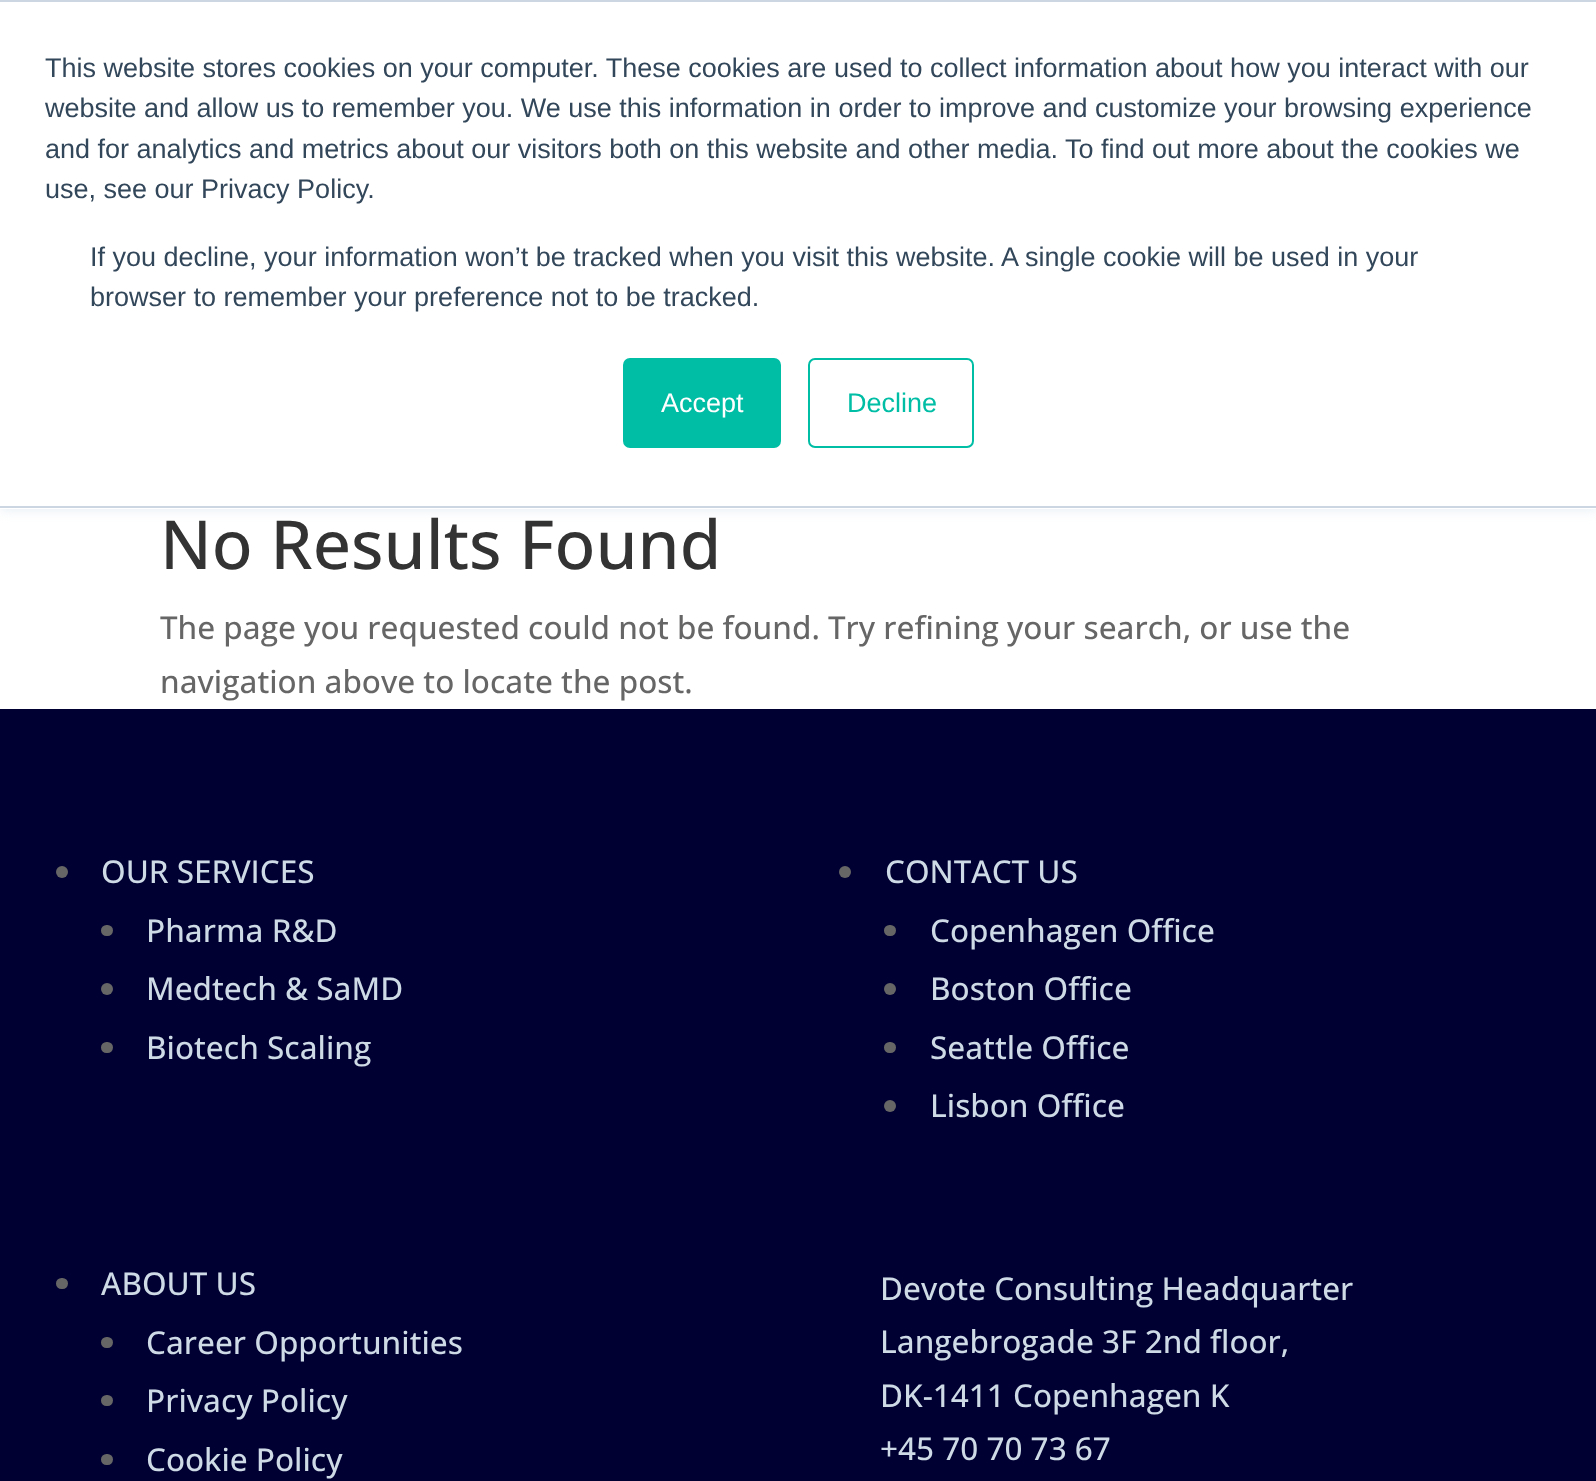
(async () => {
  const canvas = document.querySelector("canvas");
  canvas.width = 1596;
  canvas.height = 1481;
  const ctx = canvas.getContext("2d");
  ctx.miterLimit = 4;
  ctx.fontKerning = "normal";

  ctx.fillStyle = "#000033";
  ctx.fillRect(0, 0, 1596, 1481);
  ctx.fillStyle = "#ffffff";
  ctx.fillRect(0, 509, 1596, 200);
  ctx.fillStyle = "#eaf0f6";
  ctx.filter = "blur(5.5px)";
  ctx.beginPath();
  ctx.rect(0, 2, 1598, 509);
  ctx.fill();
  ctx.filter = "none";
  for (const [x, y, w, h, color] of [
    [0, 2, 1596, 507, "#ffffff"],
    [0, 0, 1596, 2, "#cbd6e2"],
    [0, 506, 1596, 2, "#cbd6e2"],
  ]) {
    ctx.fillStyle = color;
    ctx.fillRect(x, y, w, h);
  }
  ctx.fillStyle = "#00bda5";
  ctx.beginPath();
  ctx.roundRect(624, 359, 156, 88, 6);
  ctx.fill();
  ctx.strokeStyle = "#00bda5";
  ctx.lineWidth = 2;
  ctx.stroke();
  ctx.beginPath();
  ctx.roundRect(809, 359, 164, 88, 6);
  ctx.stroke();
  ctx.fillStyle = "#666666";
  ctx.beginPath();
  ctx.arc(62, 872, 6, 0, Math.PI * 2);
  ctx.fill();
  ctx.beginPath();
  ctx.roundRect(101, 925, 12, 11, 5.5);
  ctx.fill();
  ctx.beginPath();
  ctx.arc(107, 989, 6, 0, Math.PI * 2);
  ctx.fill();
  ctx.beginPath();
  ctx.roundRect(101, 1042, 12, 11, 5.5);
  ctx.fill();
  ctx.beginPath();
  ctx.arc(845, 872, 6, 0, Math.PI * 2);
  ctx.fill();
  ctx.beginPath();
  ctx.roundRect(884, 925, 12, 11, 5.5);
  ctx.fill();
  ctx.beginPath();
  ctx.arc(890, 989, 6, 0, Math.PI * 2);
  ctx.fill();
  ctx.beginPath();
  ctx.roundRect(884, 1042, 12, 11, 5.5);
  ctx.fill();
  ctx.beginPath();
  ctx.arc(890, 1106, 6, 0, Math.PI * 2);
  ctx.fill();
  ctx.beginPath();
  ctx.roundRect(56, 1278, 12, 11, 5.5);
  ctx.fill();
  ctx.beginPath();
  ctx.roundRect(101, 1337, 12, 11, 5.5);
  ctx.fill();
  ctx.beginPath();
  ctx.roundRect(101, 1395, 12, 11, 5.5);
  ctx.fill();
  ctx.beginPath();
  ctx.roundRect(101, 1454, 12, 11, 5.5);
  ctx.fill();
  ctx.font = "27px Liberation Sans";
  ctx.fillStyle = "#33475b";
  for (const [text, x, y] of [
    ["This website stores cookies on your computer. These cookies are used to collect information about how you interact with our", 45, 77],
    ["website and allow us to remember you. We use this information in order to improve and customize your browsing experience", 45, 117],
    ["and for analytics and metrics about our visitors both on this website and other media. To find out more about the cookies we", 45, 158],
    ["use, see our Privacy Policy.", 45, 198],
    ["If you decline, your information won’t be tracked when you visit this website. A single cookie will be used in your", 90, 266],
    ["browser to remember your preference not to be tracked.", 90, 306],
  ]) {
    ctx.fillText(text, x, y);
  }
  ctx.fillStyle = "#ffffff";
  ctx.fillText("Accept", 661, 412);
  ctx.fillStyle = "#00bda5";
  ctx.fillText("Decline", 847, 412);
  ctx.font = "500 67.5px Open Sans";
  ctx.fillStyle = "#333333";
  ctx.fillText("No Results Found", 160, 569);
  ctx.font = "500 31.5px Open Sans";
  ctx.fillStyle = "#666666";
  ctx.fillText("The page you requested could not be found. Try refining your search, or use the", 160, 639);
  ctx.fillText("navigation above to locate the post.", 160, 693);
  ctx.fillStyle = "#cedbe6";
  for (const [text, x, y] of [
    ["OUR SERVICES", 101, 883],
    ["Pharma R&D", 146, 942],
    ["Medtech & SaMD", 146, 1000],
    ["Biotech Scaling", 146, 1059],
    ["CONTACT US", 885, 883],
    ["Copenhagen Office", 930, 942],
    ["Boston Office", 930, 1000],
    ["Seattle Office", 930, 1059],
    ["Lisbon Office", 930, 1117],
    ["ABOUT US", 101, 1295],
    ["Career Opportunities", 146, 1354],
    ["Privacy Policy", 146, 1412],
    ["Cookie Policy", 146, 1471],
    ["Devote Consulting Headquarter", 880, 1300],
    ["Langebrogade 3F 2nd floor,", 880, 1353],
    ["DK-1411 Copenhagen K", 880, 1407],
    ["+45 70 70 73 67", 880, 1460],
  ]) {
    ctx.fillText(text, x, y);
  }
})();
